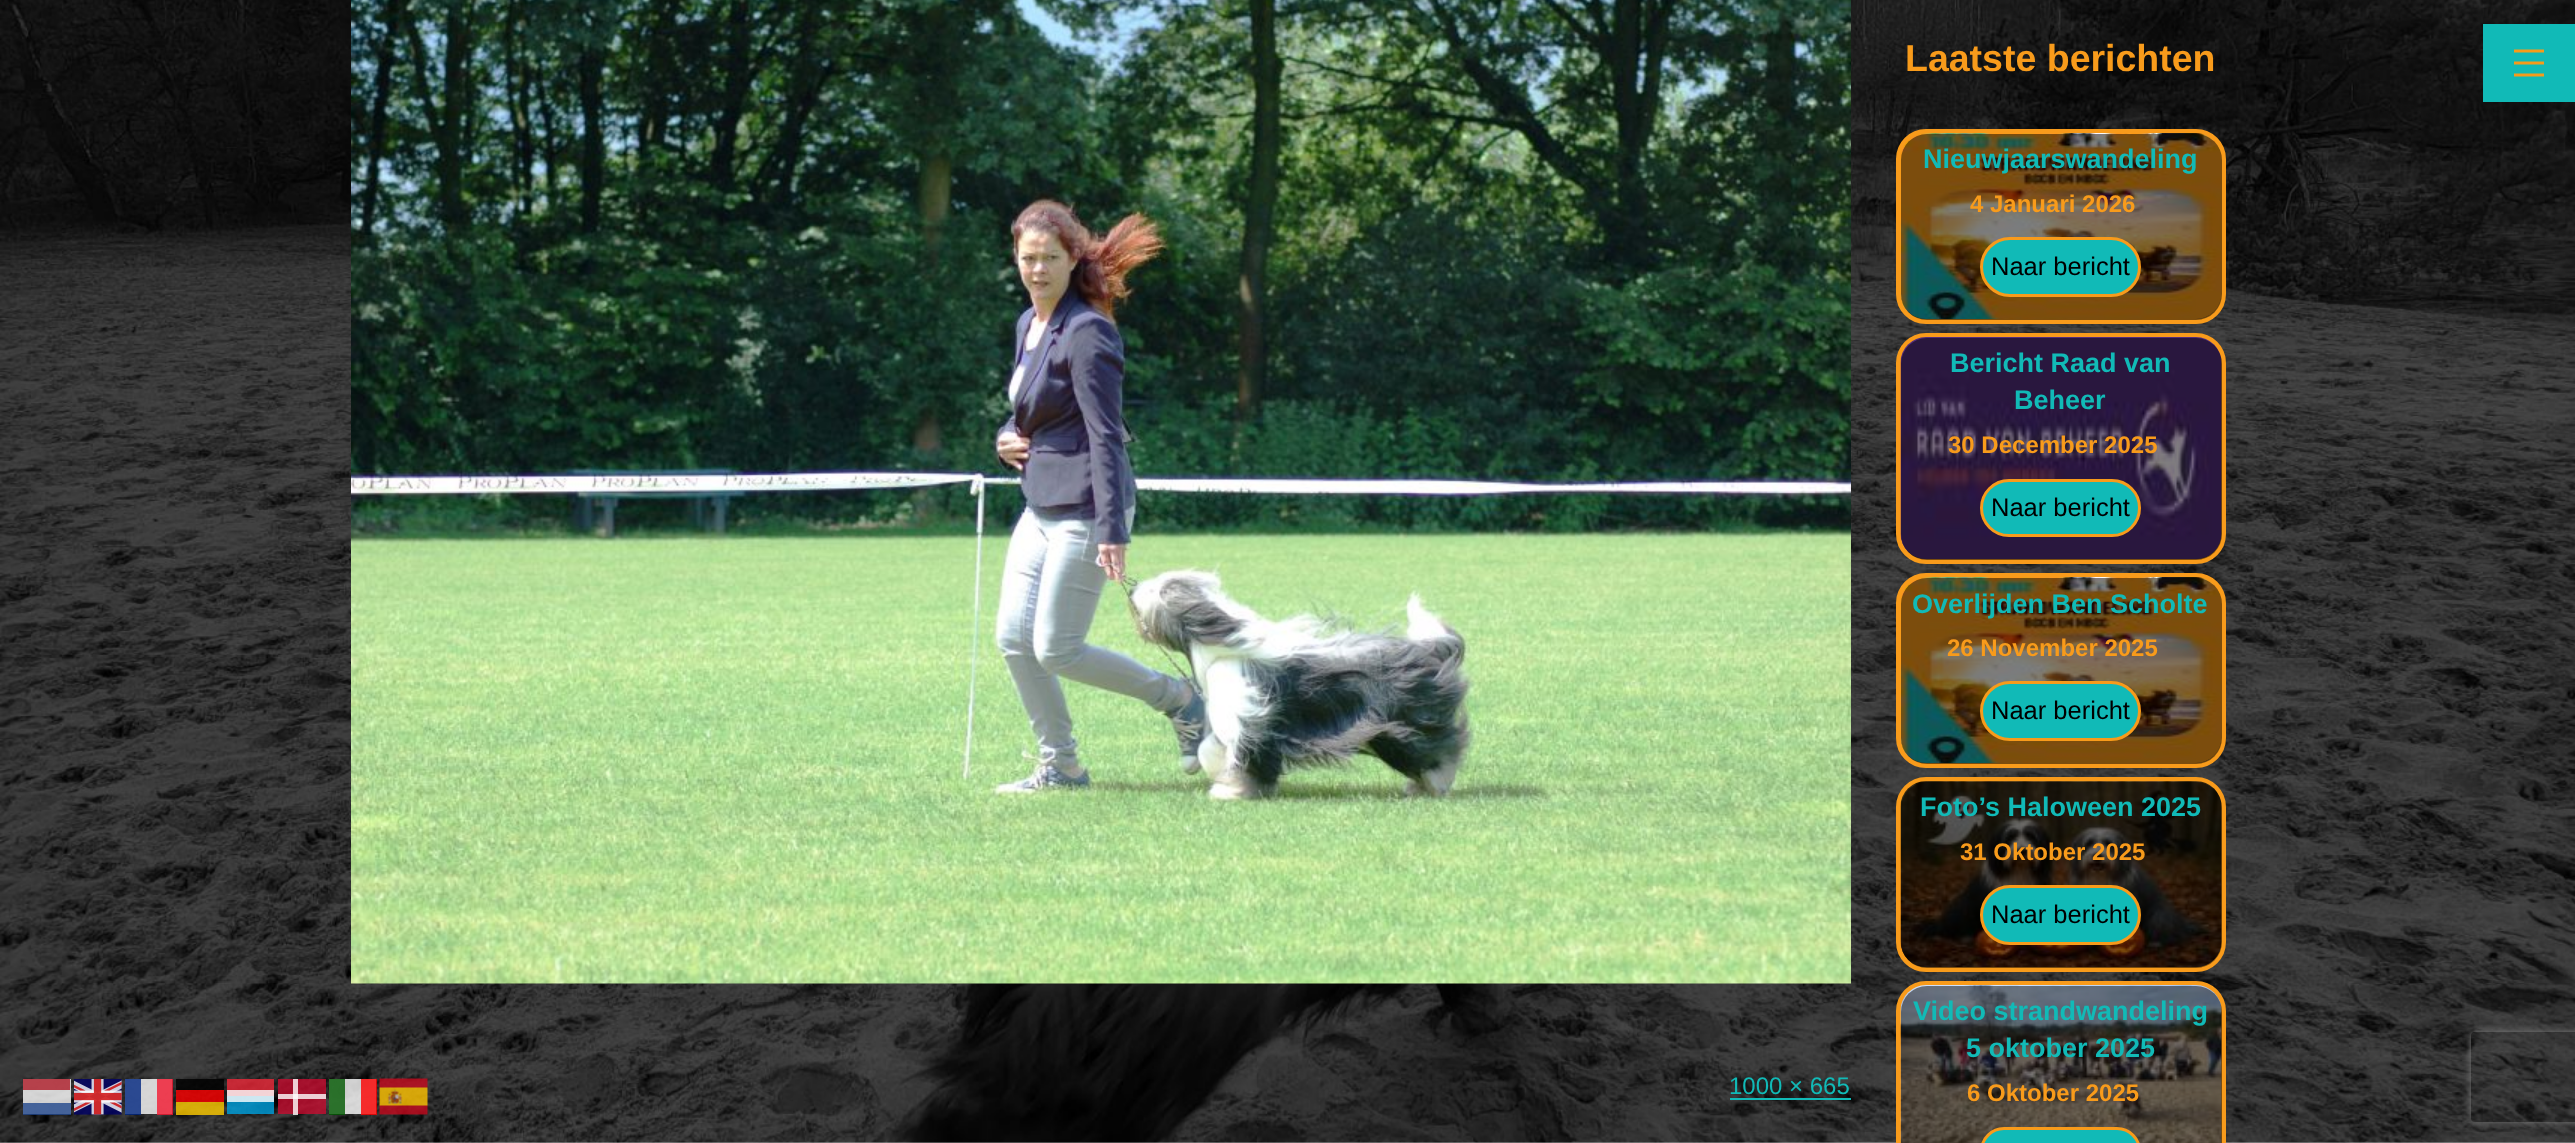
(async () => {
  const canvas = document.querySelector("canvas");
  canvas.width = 2575;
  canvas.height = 1143;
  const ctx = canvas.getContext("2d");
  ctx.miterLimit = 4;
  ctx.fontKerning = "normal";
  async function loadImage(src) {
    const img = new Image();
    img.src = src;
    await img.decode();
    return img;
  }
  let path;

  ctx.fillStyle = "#ffffff";
  ctx.fillRect(0, 0, 2575, 1143);
  ctx.drawImage(await loadImage("img/1.png"), 0, 0, 2575, 1143);
  ctx.fillStyle = "rgba(255, 255, 255, 0.8)";
  ctx.fillRect(23, 1079, 48, 35);
  ctx.drawImage(await loadImage("img/2.png"), 379, 1078, 49, 37);
  ctx.fillStyle = "rgba(174, 28, 40, 0.8)";
  ctx.fillRect(23, 1079, 47, 11);
  ctx.drawImage(await loadImage("img/3.png"), 74, 1079, 48, 36);
  for (const [x, y, w, h, color] of [
    [125, 1079, 47, 35, "rgba(255, 255, 255, 0.8)"],
    [125, 1079, 16, 36, "rgba(0, 38, 127, 0.8)"],
    [157, 1079, 16, 36, "rgba(243, 24, 48, 0.8)"],
    [176, 1079, 48, 11, "rgba(0, 0, 0, 0.8)"],
    [227, 1079, 47, 17, "rgba(237, 41, 57, 0.8)"],
    [278, 1079, 48, 35, "rgba(198, 12, 48, 0.8)"],
    [293, 1079, 5, 36, "rgba(255, 255, 255, 0.8)"],
    [329, 1079, 47, 35, "rgba(255, 255, 255, 0.8)"],
    [176, 1090, 48, 12, "rgba(255, 0, 0, 0.8)"],
    [227, 1096, 47, 18, "rgba(0, 161, 222, 0.8)"],
    [227, 1090, 47, 12, "rgba(255, 255, 255, 0.8)"],
    [278, 1094, 48, 5, "rgba(255, 255, 255, 0.8)"],
    [329, 1079, 16, 36, "rgba(0, 87, 0, 0.8)"],
    [361, 1079, 16, 36, "rgba(252, 0, 0, 0.8)"],
    [23, 1103, 48, 12, "rgba(33, 70, 139, 0.8)"],
    [176, 1102, 48, 13, "rgba(255, 204, 0, 0.8)"],
  ]) {
    ctx.fillStyle = color;
    ctx.fillRect(x, y, w, h);
  }
  ctx.drawImage(await loadImage("img/4.png"), 351, 0, 1500, 984);
  ctx.fillStyle = "#11bab7";
  ctx.fillRect(1730, 1098, 121, 2);
  ctx.beginPath();
  ctx.roundRect(1898.5, 131.5, 325, 190, 27.5);
  ctx.strokeStyle = "#f89b1b";
  ctx.lineWidth = 5;
  ctx.stroke();
  ctx.drawImage(await loadImage("img/5.png"), 1900, 133, 321, 186);
  ctx.fillStyle = "rgba(0, 0, 0, 0.5)";
  ctx.beginPath();
  ctx.roundRect(1901, 134, 321, 186, 26);
  ctx.fill();
  ctx.fillStyle = "#11bab7";
  ctx.beginPath();
  ctx.roundRect(1981.5, 238.5, 158, 57, 28.5);
  ctx.fill();
  ctx.lineWidth = 3;
  ctx.stroke();
  ctx.beginPath();
  ctx.roundRect(1898.5, 335.5, 325, 226, 27.5);
  ctx.lineWidth = 5;
  ctx.stroke();
  ctx.drawImage(await loadImage("img/6.png"), 1900, 337, 322, 222);
  ctx.fillStyle = "rgba(0, 0, 0, 0.5)";
  ctx.beginPath();
  ctx.roundRect(1901, 338, 321, 222, 26);
  ctx.fill();
  ctx.fillStyle = "#11bab7";
  ctx.beginPath();
  ctx.roundRect(1981.5, 480.5, 158, 55, 27.5);
  ctx.fill();
  ctx.lineWidth = 3;
  ctx.stroke();
  ctx.beginPath();
  ctx.roundRect(1898.5, 575.5, 325, 190, 27.5);
  ctx.lineWidth = 5;
  ctx.stroke();
  ctx.drawImage(await loadImage("img/7.png"), 1900, 577, 321, 186);
  ctx.fillStyle = "rgba(0, 0, 0, 0.5)";
  ctx.beginPath();
  ctx.roundRect(1901, 578, 321, 186, 26);
  ctx.fill();
  ctx.fillStyle = "#11bab7";
  ctx.beginPath();
  ctx.roundRect(1981.5, 682.5, 158, 57, 28.5);
  ctx.fill();
  ctx.lineWidth = 3;
  ctx.stroke();
  ctx.beginPath();
  ctx.roundRect(1898.5, 779.5, 325, 190, 27.5);
  ctx.lineWidth = 5;
  ctx.stroke();
  ctx.drawImage(await loadImage("img/8.png"), 1900, 781, 322, 186);
  ctx.fillStyle = "rgba(0, 0, 0, 0.5)";
  ctx.beginPath();
  ctx.roundRect(1901, 782, 321, 186, 26);
  ctx.fill();
  ctx.fillStyle = "#11bab7";
  ctx.beginPath();
  ctx.roundRect(1981.5, 886.5, 158, 57, 28.5);
  ctx.fill();
  ctx.lineWidth = 3;
  ctx.stroke();
  ctx.beginPath();
  ctx.roundRect(1898.5, 983.5, 325, 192, 27.5);
  ctx.lineWidth = 5;
  ctx.stroke();
  ctx.drawImage(await loadImage("img/9.png"), 1900, 985, 322, 158);
  ctx.fillStyle = "rgba(0, 0, 0, 0.5)";
  ctx.beginPath();
  ctx.roundRect(1901, 986, 321, 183, 26);
  ctx.fill();
  ctx.fillStyle = "#11bab7";
  ctx.beginPath();
  ctx.roundRect(1981.5, 1128.5, 158, 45, 27.5);
  ctx.fill();
  ctx.lineWidth = 3;
  ctx.stroke();
  ctx.fillRect(2483, 24, 92, 78);
  ctx.drawImage(await loadImage("img/10.png"), 2514, 49, 30, 28);
  ctx.save();
  path = new Path2D("M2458 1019H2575V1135H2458ZM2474 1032H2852C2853.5 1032 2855 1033.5 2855 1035V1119C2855 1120.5 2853.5 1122 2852 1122H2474C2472.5 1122 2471 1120.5 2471 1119V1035C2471 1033.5 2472.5 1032 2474 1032Z");
  ctx.clip(path, "evenodd");
  ctx.fillStyle = "#808080";
  ctx.filter = "blur(4px)";
  ctx.beginPath();
  ctx.roundRect(2471, 1032, 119, 90, 3);
  ctx.fill();
  ctx.filter = "none";
  ctx.restore();
  ctx.font = "24px Liberation Sans";
  ctx.fillText("1000 × 665", 1729, 1094);
  ctx.font = "bold 37.5px Liberation Sans";
  ctx.fillStyle = "#f89b1b";
  ctx.fillText("Laatste berichten", 1905, 71);
  ctx.font = "bold 27px Liberation Sans";
  ctx.fillStyle = "#11bab7";
  ctx.fillText("Nieuwjaarswandeling", 1923, 168);
  ctx.font = "bold 24px Liberation Sans";
  ctx.fillStyle = "#f89b1b";
  ctx.fillText("4 Januari 2026", 1970, 212);
  ctx.font = "25.5px Liberation Sans";
  ctx.fillStyle = "#000000";
  ctx.fillText("Naar bericht", 1991, 275);
  ctx.font = "bold 27px Liberation Sans";
  ctx.fillStyle = "#11bab7";
  ctx.fillText("Bericht Raad van", 1950, 372);
  ctx.fillText("Beheer", 2014, 409);
  ctx.font = "bold 24px Liberation Sans";
  ctx.fillStyle = "#f89b1b";
  ctx.fillText("30 December 2025", 1948, 453);
  ctx.font = "25.5px Liberation Sans";
  ctx.fillStyle = "#000000";
  ctx.fillText("Naar bericht", 1991, 516);
  ctx.font = "bold 27px Liberation Sans";
  ctx.fillStyle = "#11bab7";
  ctx.fillText("Overlijden Ben Scholte", 1912, 613);
  ctx.font = "bold 24px Liberation Sans";
  ctx.fillStyle = "#f89b1b";
  ctx.fillText("26 November 2025", 1947, 656);
  ctx.font = "25.5px Liberation Sans";
  ctx.fillStyle = "#000000";
  ctx.fillText("Naar bericht", 1991, 719);
  ctx.font = "bold 27px Liberation Sans";
  ctx.fillStyle = "#11bab7";
  ctx.fillText("Foto’s Haloween 2025", 1920, 816);
  ctx.font = "bold 24px Liberation Sans";
  ctx.fillStyle = "#f89b1b";
  ctx.fillText("31 Oktober 2025", 1960, 860);
  ctx.font = "25.5px Liberation Sans";
  ctx.fillStyle = "#000000";
  ctx.fillText("Naar bericht", 1991, 923);
  ctx.font = "bold 27px Liberation Sans";
  ctx.fillStyle = "#11bab7";
  ctx.fillText("Video strandwandeling", 1913, 1020);
  ctx.fillText("5 oktober 2025", 1966, 1057);
  ctx.font = "bold 24px Liberation Sans";
  ctx.fillStyle = "#f89b1b";
  ctx.fillText("6 Oktober 2025", 1967, 1101);
})();
